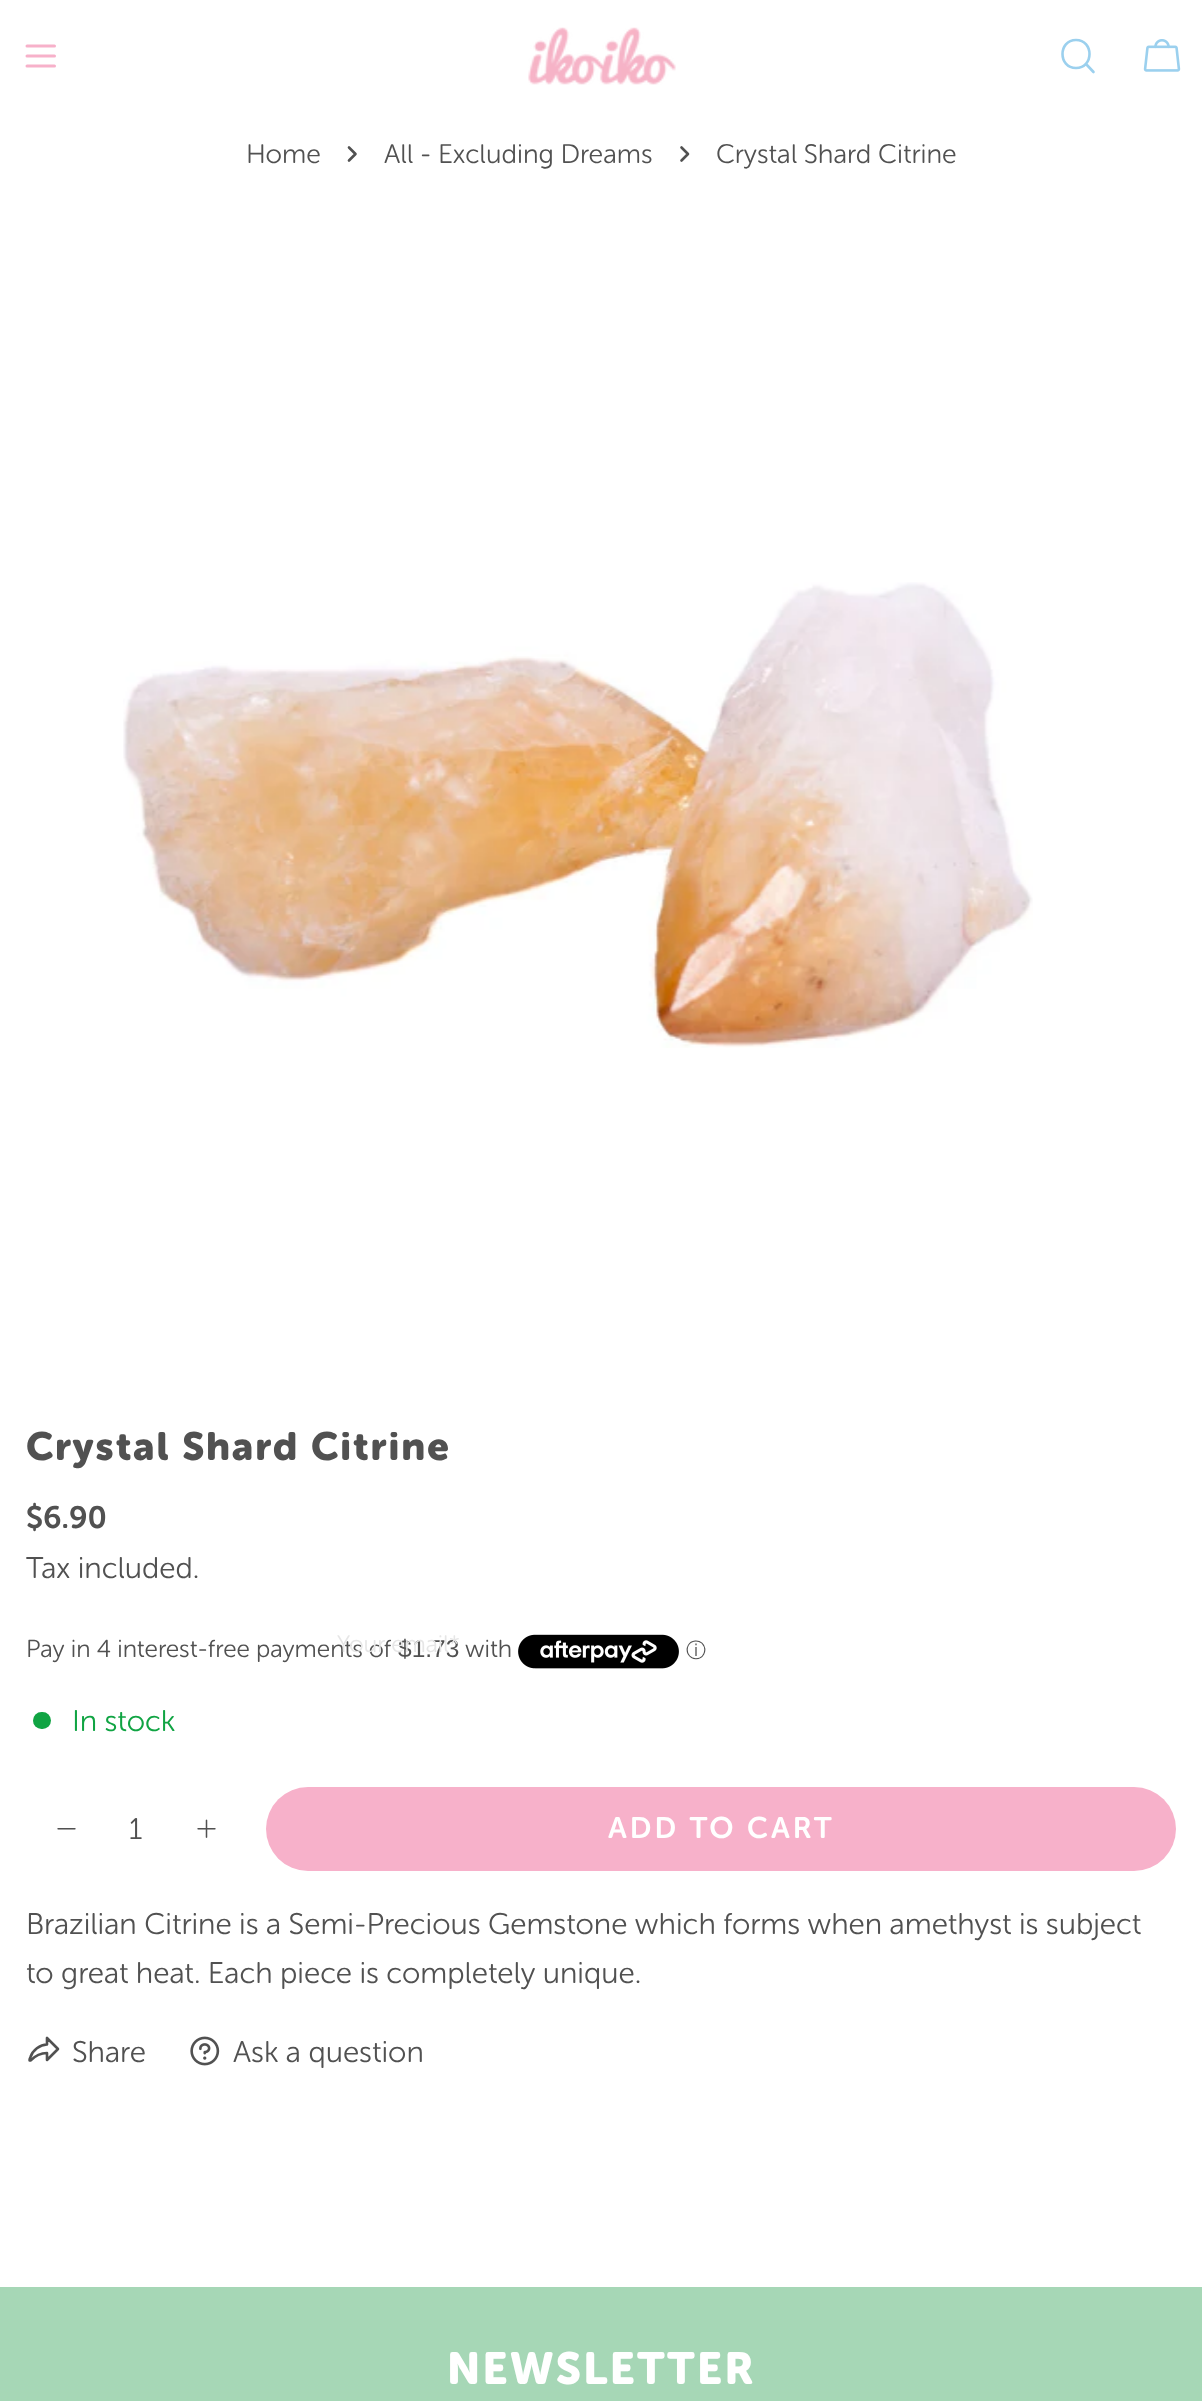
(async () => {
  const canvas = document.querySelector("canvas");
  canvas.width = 1202;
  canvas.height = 2401;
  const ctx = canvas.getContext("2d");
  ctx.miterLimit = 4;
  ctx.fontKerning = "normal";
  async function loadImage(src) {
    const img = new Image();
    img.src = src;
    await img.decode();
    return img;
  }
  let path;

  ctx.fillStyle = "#ffffff";
  ctx.fillRect(0, 0, 1202, 2401);
  path = new Path2D("M27 56H54.5M27 46H54.5M27 66H54.5");
  ctx.strokeStyle = "#f7b1ca";
  ctx.lineWidth = 3;
  ctx.lineCap = "round";
  ctx.lineJoin = "round";
  ctx.stroke(path);
  ctx.drawImage(await loadImage("img/1.png"), 528, 27, 148, 58);
  path = new Path2D("M1076 68C1094 68 1094 40 1076 40C1058 40 1058 68 1076 68ZM1086 64L1093.5 72");
  ctx.strokeStyle = "#9bd0ee";
  ctx.lineWidth = 2.6;
  ctx.stroke(path);
  ctx.drawImage(await loadImage("img/2.png"), 1143, 39, 38, 33);
  path = new Path2D("M349 147.5L355.5 154L349 160.5");
  ctx.strokeStyle = "#515151";
  ctx.stroke(path);
  path = new Path2D("M681.5 147.5L688 154L681.5 160.5");
  ctx.stroke(path);
  ctx.drawImage(await loadImage("img/3.png"), 123, 582, 910, 466);
  path = new Path2D("M30.5 2060.5C32.5 2058.5 38.5 2053 47 2053V2060L58 2049L47 2038V2044.5C40 2044.5 32.5 2050.5 30.5 2057C30 2058 29 2059.5 29.5 2060.5Z");
  ctx.stroke(path);
  ctx.drawImage(await loadImage("img/4.png"), 190, 2036, 30, 30);
  ctx.drawImage(await loadImage("img/5.png"), 518, 1634, 161, 35);
  ctx.fillStyle = "#10a443";
  ctx.beginPath();
  ctx.roundRect(33, 1712, 18, 17, 8.5);
  ctx.fill();
  ctx.drawImage(await loadImage("img/6.png"), 57, 1828, 19, 2);
  ctx.drawImage(await loadImage("img/7.png"), 197, 1819, 19, 19);
  ctx.fillStyle = "#f7b1ca";
  ctx.beginPath();
  ctx.roundRect(266, 1787, 910, 84, 42);
  ctx.fill();
  ctx.fillStyle = "#a6d7b6";
  ctx.fillRect(0, 2287, 1202, 114);
  ctx.font = "300 26.75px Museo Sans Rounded";
  ctx.fillStyle = "#515151";
  for (const [text, x, y] of [
    ["Home", 246, 163],
    ["All - Excluding Dreams", 384, 163],
    ["Crystal Shard Citrine", 716, 163],
  ]) {
    ctx.fillText(text, x, y);
  }
  ctx.letterSpacing = "2px";
  ctx.font = "bold 39.25px Museo Sans Rounded";
  ctx.fillText("Crystal Shard Citrine", 26, 1460);
  ctx.letterSpacing = "0px";
  ctx.font = "600 31px Museo Sans Rounded";
  ctx.fillText("$6.90", 26, 1528);
  ctx.font = "300 29.75px Museo Sans Rounded";
  for (const [text, x, y] of [
    ["Tax included.", 26, 1578],
    ["Share", 72, 2062],
    ["Ask a question", 233, 2062],
  ]) {
    ctx.fillText(text, x, y);
  }
  ctx.font = "300 24.5px Museo Sans Rounded";
  ctx.fillText("Pay in 4 interest-free payments of", 26, 1657);
  ctx.font = "24.5px Liberation Sans";
  ctx.fillText("$1.73", 398, 1657);
  ctx.font = "300 23.75px Museo Sans Rounded";
  ctx.fillStyle = "#e6e6e6";
  ctx.fillText("Your email*", 337, 1652);
  ctx.font = "300 24.5px Museo Sans Rounded";
  ctx.fillStyle = "#515151";
  ctx.fillText("with", 465, 1657);
  ctx.font = "500 20px WenQuanYi Zen Hei";
  ctx.fillText("ⓘ", 686, 1657);
  ctx.font = "300 29.75px Museo Sans Rounded";
  ctx.fillStyle = "#10a443";
  ctx.fillText("In stock", 72, 1731);
  ctx.fillStyle = "#515151";
  ctx.fillText("1", 129, 1839);
  ctx.letterSpacing = "3px";
  ctx.font = "600 29.75px Museo Sans Rounded";
  ctx.fillStyle = "#ffffff";
  ctx.fillText("ADD TO CART", 608, 1838);
  ctx.letterSpacing = "0px";
  ctx.font = "300 29.75px Museo Sans Rounded";
  ctx.fillStyle = "#515151";
  ctx.fillText("Brazilian Citrine is a Semi-Precious Gemstone which forms when amethyst is subject", 26, 1934);
  ctx.fillText("to great heat. Each piece is completely unique.", 26, 1983);
  ctx.letterSpacing = "2.25px";
  ctx.font = "bold 44.75px Museo Sans Rounded";
  ctx.fillStyle = "#ffffff";
  ctx.fillText("NEWSLETTER", 447, 2384);
})();
